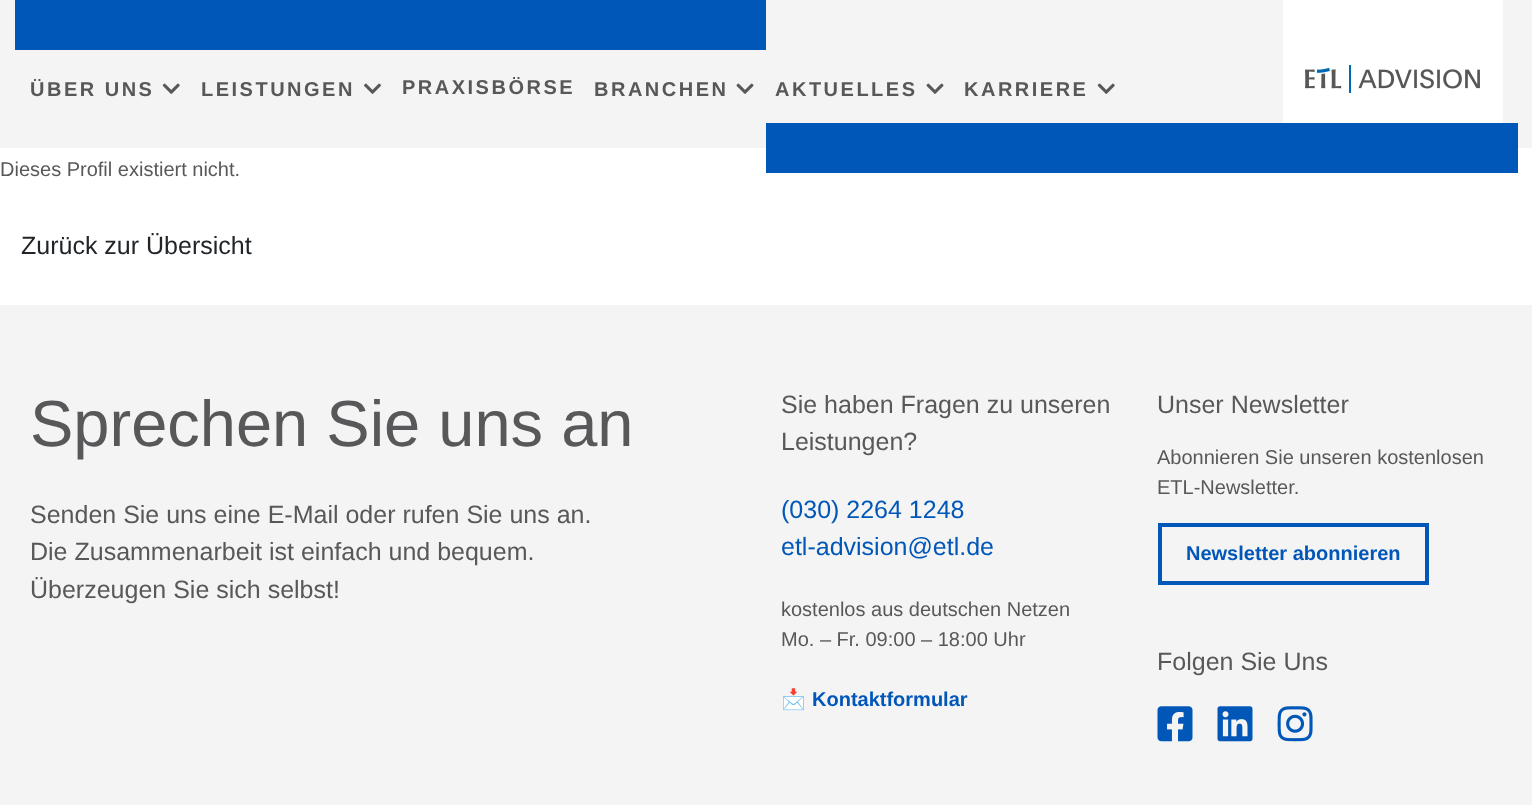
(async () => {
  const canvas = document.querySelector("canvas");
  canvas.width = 1532;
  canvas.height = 805;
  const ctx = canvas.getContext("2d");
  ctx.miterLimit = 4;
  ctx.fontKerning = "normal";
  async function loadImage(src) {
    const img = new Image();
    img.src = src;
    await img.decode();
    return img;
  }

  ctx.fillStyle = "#ffffff";
  ctx.fillRect(0, 0, 1532, 805);
  ctx.fillStyle = "#f4f4f4";
  ctx.fillRect(0, 0, 1532, 148);
  ctx.fillStyle = "#0057b8";
  ctx.fillRect(15, 0, 751, 50);
  ctx.drawImage(await loadImage("img/1.png"), 162, 83, 18, 11);
  ctx.drawImage(await loadImage("img/2.png"), 364, 83, 17, 11);
  ctx.drawImage(await loadImage("img/3.png"), 736, 83, 18, 11);
  ctx.drawImage(await loadImage("img/3.png"), 926, 83, 18, 11);
  ctx.drawImage(await loadImage("img/1.png"), 1097, 83, 18, 11);
  ctx.fillStyle = "#ffffff";
  ctx.fillRect(1283, 0, 220, 123);
  ctx.drawImage(await loadImage("img/4.png"), 1305, 65, 175, 28);
  ctx.fillStyle = "#0057b8";
  ctx.fillRect(766, 123, 752, 50);
  ctx.fillStyle = "#f4f4f4";
  ctx.fillRect(0, 305, 1532, 500);
  ctx.strokeStyle = "#0057b8";
  ctx.lineWidth = 4;
  ctx.strokeRect(1160, 525, 267, 58);
  ctx.drawImage(await loadImage("img/5.png"), 1157, 706, 36, 36);
  ctx.drawImage(await loadImage("img/6.png"), 1217, 706, 36, 36);
  ctx.drawImage(await loadImage("img/7.png"), 1277, 706, 36, 36);
  ctx.letterSpacing = "2.5px";
  ctx.font = "bold 20px Liberation Sans";
  ctx.fillStyle = "#58585a";
  for (const [text, x, y] of [
    ["ÜBER UNS", 30, 96],
    ["LEISTUNGEN", 201, 96],
    ["PRAXISBÖRSE", 402, 94],
    ["BRANCHEN", 594, 96],
    ["AKTUELLES", 775, 96],
    ["KARRIERE", 964, 96],
  ]) {
    ctx.fillText(text, x, y);
  }
  ctx.letterSpacing = "0px";
  ctx.font = "20px Liberation Sans";
  ctx.fillText("Dieses Profil existiert nicht.", 0, 176);
  ctx.font = "25px Liberation Sans";
  ctx.fillStyle = "#212529";
  ctx.fillText("Zurück zur Übersicht", 21, 254);
  ctx.font = "65px Liberation Sans";
  ctx.fillStyle = "#58585a";
  ctx.fillText("Sprechen Sie uns an", 30, 446);
  ctx.font = "25px Liberation Sans";
  for (const [text, x, y] of [
    ["Senden Sie uns eine E-Mail oder rufen Sie uns an.", 30, 523],
    ["Die Zusammenarbeit ist einfach und bequem.", 30, 560],
    ["Überzeugen Sie sich selbst!", 30, 598],
    ["Sie haben Fragen zu unseren", 781, 413],
    ["Leistungen?", 781, 450],
  ]) {
    ctx.fillText(text, x, y);
  }
  ctx.fillStyle = "#0057b8";
  ctx.fillText("(030) 2264 1248", 781, 518);
  ctx.fillText("etl-advision@etl.de", 781, 555);
  ctx.font = "20px Liberation Sans";
  ctx.fillStyle = "#58585a";
  ctx.fillText("kostenlos aus deutschen Netzen", 781, 616);
  ctx.fillText("Mo. – Fr. 09:00 – 18:00 Uhr", 781, 646);
  ctx.font = "20px Noto Color Emoji";
  ctx.fillStyle = "#0057b8";
  ctx.fillText("📩", 781, 706);
  ctx.font = "bold 20px Liberation Sans";
  ctx.fillText("Kontaktformular", 812, 706);
  ctx.font = "25px Liberation Sans";
  ctx.fillStyle = "#58585a";
  ctx.fillText("Unser Newsletter", 1157, 413);
  ctx.font = "20px Liberation Sans";
  ctx.fillText("Abonnieren Sie unseren kostenlosen", 1157, 464);
  ctx.fillText("ETL-Newsletter.", 1157, 494);
  ctx.font = "bold 20px Liberation Sans";
  ctx.fillStyle = "#0057b8";
  ctx.fillText("Newsletter abonnieren", 1186, 560);
  ctx.font = "25px Liberation Sans";
  ctx.fillStyle = "#58585a";
  ctx.fillText("Folgen Sie Uns", 1157, 670);
})();
